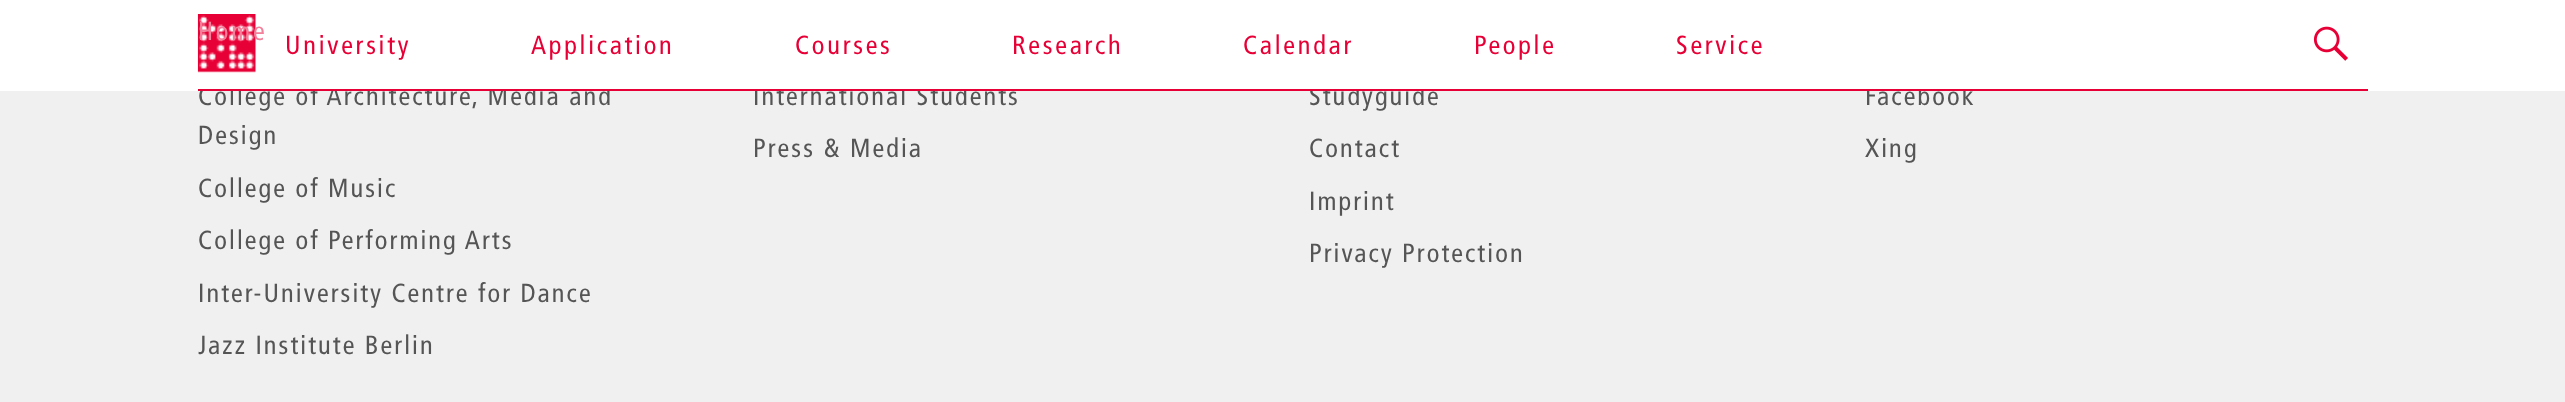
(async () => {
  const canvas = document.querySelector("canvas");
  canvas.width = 2565;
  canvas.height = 402;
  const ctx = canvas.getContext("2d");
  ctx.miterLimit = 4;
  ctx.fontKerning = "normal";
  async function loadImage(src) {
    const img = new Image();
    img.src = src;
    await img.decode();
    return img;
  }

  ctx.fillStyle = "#f0f0f0";
  ctx.fillRect(0, 0, 2565, 402);
  ctx.letterSpacing = "2.1px";
  ctx.font = "26.25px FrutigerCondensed";
  ctx.fillStyle = "#555555";
  for (const [text, x, y] of [
    ["College of Architecture, Media and", 198, 105],
    ["Design", 198, 144],
    ["College of Music", 198, 197],
    ["College of Performing Arts", 198, 249],
    ["Inter-University Centre for Dance", 198, 302],
    ["Jazz Institute Berlin", 198, 354],
    ["International Students", 753, 105],
    ["Press & Media", 753, 157],
    ["Studyguide", 1309, 105],
    ["Contact", 1309, 157],
    ["Imprint", 1309, 210],
    ["Privacy Protection", 1309, 262],
    ["Facebook", 1865, 105],
  ]) {
    ctx.fillText(text, x, y);
  }
  ctx.fillStyle = "#ffffff";
  ctx.fillRect(0, 0, 2565, 91);
  ctx.drawImage(await loadImage("img/2.png"), 2313, 26, 35, 35);
  ctx.drawImage(await loadImage("img/1.png"), 197, 14, 59, 59);
  ctx.letterSpacing = "2.75px";
  ctx.fillStyle = "#f3809a";
  ctx.fillText("Home", 198, 40);
  ctx.fillStyle = "#e70036";
  for (const [text, x, y] of [
    ["Service", 1676, 54],
    ["People", 1474, 54],
    ["Calendar", 1243, 54],
    ["Research", 1012, 54],
    ["Courses", 795, 54],
    ["Application", 531, 54],
    ["University", 285, 54],
  ]) {
    ctx.fillText(text, x, y);
  }
  ctx.fillRect(198, 89, 2170, 2);
  ctx.letterSpacing = "2.1px";
  ctx.fillStyle = "#555555";
  ctx.fillText("Xing", 1865, 157);
})();
